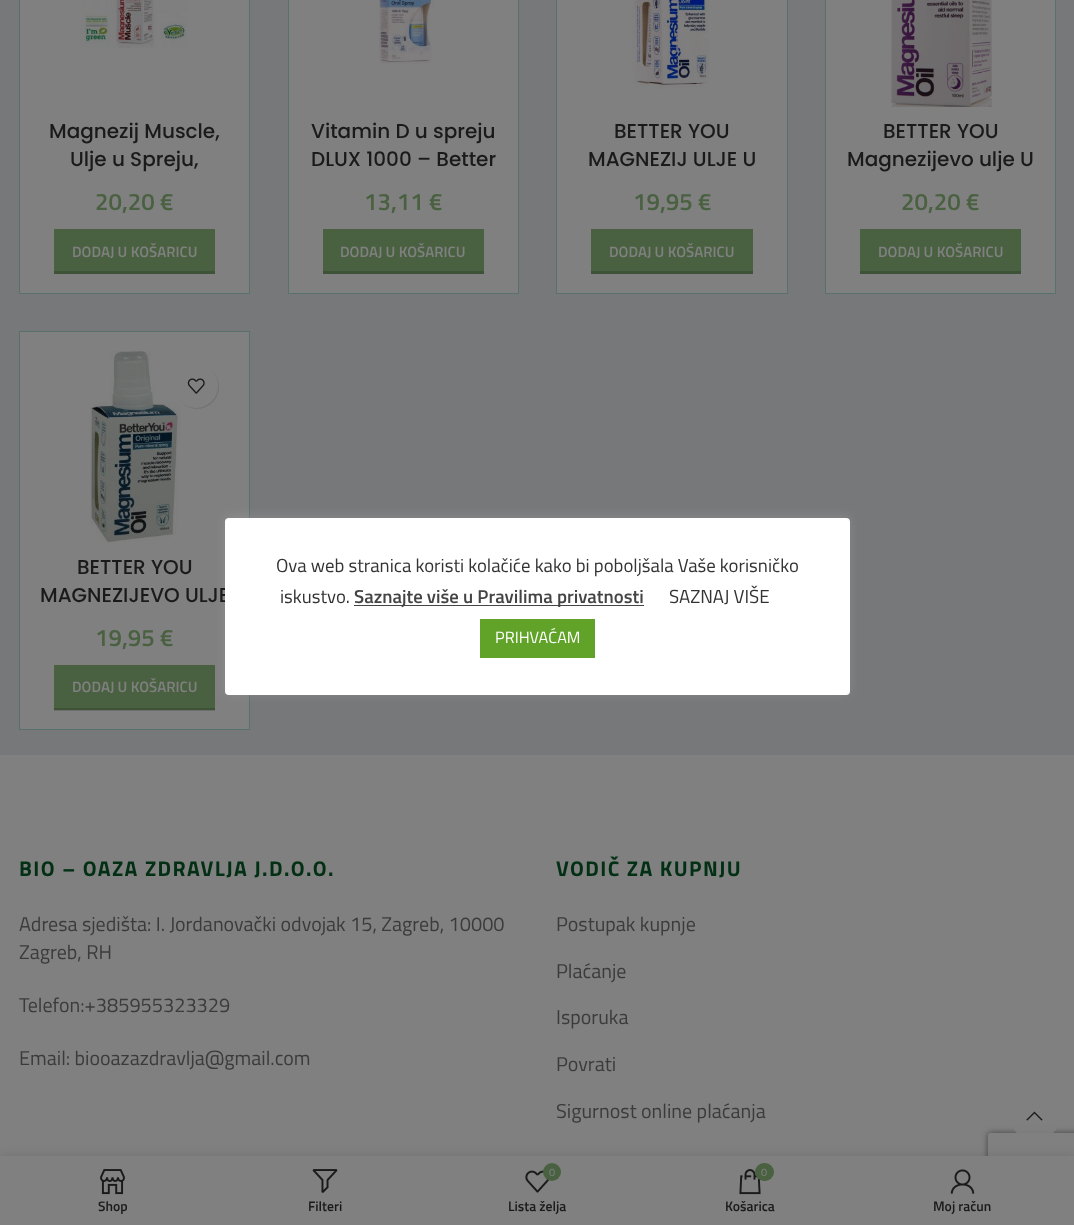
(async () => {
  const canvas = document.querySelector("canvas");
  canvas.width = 1074;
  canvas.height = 1225;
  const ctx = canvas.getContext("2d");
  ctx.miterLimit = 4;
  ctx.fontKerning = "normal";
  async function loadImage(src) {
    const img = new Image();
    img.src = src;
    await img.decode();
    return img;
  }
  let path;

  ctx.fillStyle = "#808080";
  ctx.fillRect(0, 0, 1074, 1225);
  ctx.fillStyle = "#76787a";
  ctx.fillRect(0, 0, 1074, 755);
  ctx.fillStyle = "#808080";
  ctx.beginPath();
  ctx.rect(19.5, -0.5, 230, 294);
  ctx.fill();
  ctx.strokeStyle = "#59716e";
  ctx.stroke();
  ctx.drawImage(await loadImage("img/1.png"), 80, 0, 107, 48);
  ctx.fillStyle = "#496140";
  ctx.fillRect(54, 229, 161, 42);
  ctx.fillStyle = "#3e5237";
  ctx.fillRect(54, 271, 161, 3);
  ctx.fillStyle = "#808080";
  ctx.beginPath();
  ctx.rect(288.5, -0.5, 230, 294);
  ctx.fill();
  ctx.stroke();
  ctx.drawImage(await loadImage("img/2.png"), 379, 0, 56, 64);
  ctx.fillStyle = "#496140";
  ctx.fillRect(323, 229, 161, 42);
  ctx.fillStyle = "#3e5237";
  ctx.fillRect(323, 271, 161, 3);
  ctx.fillStyle = "#808080";
  ctx.beginPath();
  ctx.rect(556.5, -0.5, 231, 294);
  ctx.fill();
  ctx.stroke();
  ctx.drawImage(await loadImage("img/3.png"), 632, 0, 77, 89);
  ctx.fillStyle = "#496140";
  ctx.fillRect(591, 229, 162, 42);
  ctx.fillStyle = "#3e5237";
  ctx.fillRect(591, 271, 162, 3);
  ctx.fillStyle = "#808080";
  ctx.beginPath();
  ctx.rect(825.5, -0.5, 230, 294);
  ctx.fill();
  ctx.stroke();
  ctx.drawImage(await loadImage("img/4.png"), 891, 0, 101, 107);
  for (const [x, y, w, h, color] of [
    [860, 229, 161, 42, "#496140"],
    [860, 271, 161, 3, "#3e5237"],
    [20, 332, 229, 397, "#808080"],
    [54, 710, 161, 1, "#6d6d6d"],
  ]) {
    ctx.fillStyle = color;
    ctx.fillRect(x, y, w, h);
  }
  ctx.strokeRect(19.5, 331.5, 230, 398);
  ctx.drawImage(await loadImage("img/5.png"), 90, 351, 91, 192);
  ctx.fillStyle = "rgba(0, 0, 0, 0.1)";
  ctx.filter = "blur(0.5px)";
  ctx.beginPath();
  ctx.roundRect(175, 365, 44, 44, 22);
  ctx.fill();
  ctx.filter = "none";
  ctx.fillStyle = "#808080";
  ctx.beginPath();
  ctx.arc(196, 386, 22, 0, Math.PI * 2);
  ctx.fill();
  ctx.drawImage(await loadImage("img/6.png"), 187, 378, 18, 16);
  ctx.fillStyle = "#496140";
  ctx.fillRect(54, 665, 161, 43);
  ctx.fillStyle = "#3e5237";
  ctx.fillRect(54, 708, 161, 2);
  ctx.fillStyle = "rgba(172, 171, 171, 0.3)";
  ctx.filter = "blur(6px)";
  ctx.beginPath();
  ctx.roundRect(225, 516, 625, 178, 4);
  ctx.fill();
  ctx.filter = "none";
  ctx.save();
  path = new Path2D("M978 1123H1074V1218H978ZM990.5 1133H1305.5C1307 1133 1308 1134 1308 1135.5V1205.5C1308 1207 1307 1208 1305.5 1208H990.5C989 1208 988 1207 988 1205.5V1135.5C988 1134 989 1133 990.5 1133Z");
  ctx.clip(path, "evenodd");
  ctx.fillStyle = "#404040";
  ctx.filter = "blur(3px)";
  ctx.beginPath();
  ctx.roundRect(988, 1133, 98, 75, 2.5);
  ctx.fill();
  ctx.filter = "none";
  ctx.restore();
  ctx.fillStyle = "rgba(128, 128, 128, 0.9)";
  ctx.beginPath();
  ctx.arc(1035, 1116, 25, 0, Math.PI * 2);
  ctx.fill();
  ctx.drawImage(await loadImage("img/7.png"), 1026, 1111, 17, 10);
  ctx.fillStyle = "rgba(0, 0, 0, 0.12)";
  ctx.filter = "blur(5.5px)";
  ctx.beginPath();
  ctx.rect(0, 1156, 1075, 69);
  ctx.fill();
  ctx.filter = "none";
  ctx.fillStyle = "#808080";
  ctx.fillRect(0, 1156, 1074, 69);
  ctx.drawImage(await loadImage("img/8.png"), 100, 1169, 25, 26);
  ctx.drawImage(await loadImage("img/9.png"), 312, 1169, 26, 24);
  ctx.drawImage(await loadImage("img/10.png"), 525, 1170, 24, 23);
  ctx.fillStyle = "#496140";
  ctx.beginPath();
  ctx.arc(552, 1172, 9, 0, Math.PI * 2);
  ctx.fill();
  ctx.drawImage(await loadImage("img/11.png"), 739, 1169, 22, 26);
  ctx.beginPath();
  ctx.roundRect(755, 1163, 19, 18, 9);
  ctx.fill();
  ctx.drawImage(await loadImage("img/12.png"), 950, 1169, 25, 25);
  ctx.font = "500 20px Poppins";
  ctx.fillStyle = "#1a1a1a";
  ctx.fillText("Magnezij Muscle,", 49, 138);
  ctx.fillText("Ulje u Spreju,", 70, 166);
  ctx.font = "600 24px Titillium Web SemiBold";
  ctx.fillStyle = "#496140";
  ctx.fillText("20,20 €", 95, 210);
  ctx.font = "600 15px Titillium Web SemiBold";
  ctx.fillStyle = "#808080";
  ctx.fillText("DODAJ U KOŠARICU", 72, 257);
  ctx.font = "500 20px Poppins";
  ctx.fillStyle = "#1a1a1a";
  ctx.fillText("Vitamin D u spreju", 311, 138);
  ctx.fillText("DLUX 1000 – Better", 311, 166);
  ctx.font = "600 24px Titillium Web SemiBold";
  ctx.fillStyle = "#496140";
  ctx.fillText("13,11 €", 364, 210);
  ctx.font = "600 15px Titillium Web SemiBold";
  ctx.fillStyle = "#808080";
  ctx.fillText("DODAJ U KOŠARICU", 340, 257);
  ctx.font = "500 20px Poppins";
  ctx.fillStyle = "#1a1a1a";
  ctx.fillText("BETTER YOU", 614, 138);
  ctx.fillText("MAGNEZIJ ULJE U", 588, 166);
  ctx.font = "600 24px Titillium Web SemiBold";
  ctx.fillStyle = "#496140";
  ctx.fillText("19,95 €", 633, 210);
  ctx.font = "600 15px Titillium Web SemiBold";
  ctx.fillStyle = "#808080";
  ctx.fillText("DODAJ U KOŠARICU", 609, 257);
  ctx.font = "500 20px Poppins";
  ctx.fillStyle = "#1a1a1a";
  ctx.fillText("BETTER YOU", 883, 138);
  ctx.fillText("Magnezijevo ulje U", 847, 166);
  ctx.font = "600 24px Titillium Web SemiBold";
  ctx.fillStyle = "#496140";
  ctx.fillText("20,20 €", 901, 210);
  ctx.font = "600 15px Titillium Web SemiBold";
  ctx.fillStyle = "#808080";
  ctx.fillText("DODAJ U KOŠARICU", 878, 257);
  ctx.font = "500 20px Poppins";
  ctx.fillStyle = "#1a1a1a";
  ctx.fillText("BETTER YOU", 77, 574);
  ctx.fillText("MAGNEZIJEVO ULJE", 40, 602);
  ctx.font = "600 24px Titillium Web SemiBold";
  ctx.fillStyle = "#496140";
  ctx.fillText("19,95 €", 95, 646);
  ctx.font = "600 15px Titillium Web SemiBold";
  ctx.fillStyle = "#808080";
  ctx.fillText("DODAJ U KOŠARICU", 72, 692);
  ctx.letterSpacing = "1.4px";
  ctx.font = "bold 21.25px Titillium Web";
  ctx.fillStyle = "#033014";
  ctx.fillText("BIO – OAZA ZDRAVLJA J.D.O.O.", 19, 876);
  ctx.letterSpacing = "0px";
  ctx.font = "20px Titillium Web";
  ctx.fillStyle = "#3b3b3b";
  for (const [text, x, y] of [
    ["Adresa sjedišta: I. Jordanovački odvojak 15, Zagreb, 10000", 19, 931],
    ["Zagreb, RH", 19, 959],
    ["Telefon:+385955323329", 19, 1012],
    ["Email: biooazazdravlja@gmail.com", 19, 1065],
  ]) {
    ctx.fillText(text, x, y);
  }
  ctx.letterSpacing = "1.4px";
  ctx.font = "bold 21.25px Titillium Web";
  ctx.fillStyle = "#033014";
  ctx.fillText("VODIČ ZA KUPNJU", 556, 876);
  ctx.letterSpacing = "0px";
  ctx.font = "20px Titillium Web";
  ctx.fillStyle = "#3b3b3b";
  for (const [text, x, y] of [
    ["Postupak kupnje", 556, 931],
    ["Plaćanje", 556, 978],
    ["Isporuka", 556, 1024],
    ["Povrati", 556, 1071],
    ["Sigurnost online plaćanja", 556, 1118],
  ]) {
    ctx.fillText(text, x, y);
  }
  ctx.fillStyle = "#ffffff";
  ctx.beginPath();
  ctx.roundRect(225, 518, 625, 177, 4);
  ctx.fill();
  ctx.font = "18.75px Titillium Web";
  ctx.fillStyle = "#333333";
  ctx.fillText("Ova web stranica koristi kolačiće kako bi poboljšala Vaše korisničko", 276, 572);
  ctx.fillText("iskustvo.", 280, 603);
  ctx.fillStyle = "#444444";
  ctx.fillRect(354, 605, 290, 1);
  ctx.font = "600 18.75px Titillium Web SemiBold";
  ctx.fillText("Saznajte više u Pravilima privatnosti", 354, 603);
  ctx.font = "18.75px Titillium Web";
  ctx.fillStyle = "#333333";
  ctx.fillText("SAZNAJ VIŠE", 669, 603);
  ctx.fillStyle = "#61a229";
  ctx.fillRect(480, 619, 115, 39);
  ctx.font = "16.25px Titillium Web";
  ctx.fillStyle = "#ffffff";
  ctx.fillText("PRIHVAĆAM", 495, 643);
  ctx.font = "600 13.75px Titillium Web SemiBold";
  ctx.fillStyle = "#1a1a1a";
  ctx.fillText("Shop", 98, 1211);
  ctx.fillText("Filteri", 308, 1211);
  ctx.font = "11px Titillium Web";
  ctx.fillStyle = "#808080";
  ctx.fillText("0", 549, 1176);
  ctx.font = "600 13.75px Titillium Web SemiBold";
  ctx.fillStyle = "#1a1a1a";
  ctx.fillText("Lista želja", 508, 1211);
  ctx.font = "11px Titillium Web";
  ctx.fillStyle = "#808080";
  ctx.fillText("0", 761, 1176);
  ctx.font = "600 13.75px Titillium Web SemiBold";
  ctx.fillStyle = "#1a1a1a";
  ctx.fillText("Košarica", 725, 1211);
  ctx.fillText("Moj račun", 933, 1211);
})();
